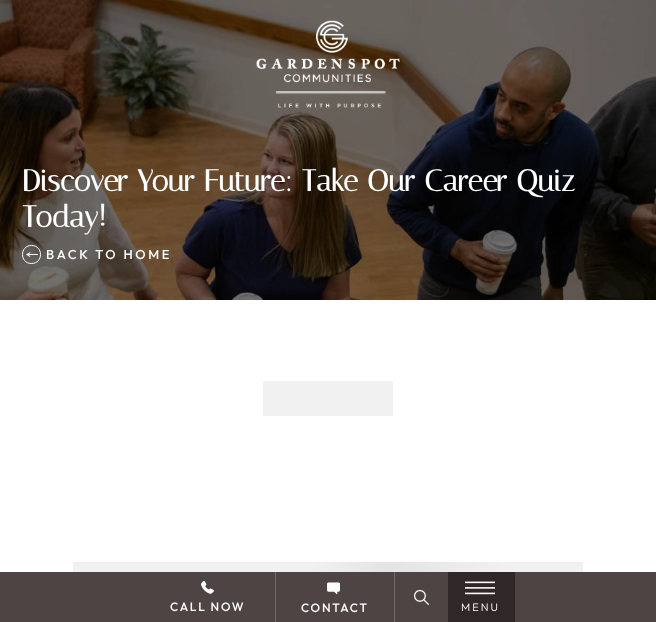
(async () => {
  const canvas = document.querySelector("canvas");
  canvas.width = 656;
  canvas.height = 622;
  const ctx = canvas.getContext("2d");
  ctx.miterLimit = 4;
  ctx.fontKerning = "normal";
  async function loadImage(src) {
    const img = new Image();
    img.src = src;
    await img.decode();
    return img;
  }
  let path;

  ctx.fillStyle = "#ffffff";
  ctx.fillRect(0, 0, 656, 622);
  ctx.drawImage(await loadImage("img/1.png"), 0, 0, 656, 300);
  path = new Path2D("M31.5 263.5C19.5 263.5 19.5 245.5 31.5 245.5C43.5 245.5 43.5 263.5 31.5 263.5Z");
  ctx.strokeStyle = "#ffffff";
  ctx.stroke(path);
  ctx.drawImage(await loadImage("img/2.png"), 26, 252, 12, 5);
  ctx.drawImage(await loadImage("img/3.png"), 73, 381, 510, 191);
  ctx.drawImage(await loadImage("img/4.png"), 256, 20, 144, 88);
  ctx.fillStyle = "#4e4444";
  ctx.fillRect(0, 572, 656, 50);
  ctx.drawImage(await loadImage("img/5.png"), 414, 589, 15, 16);
  ctx.fillStyle = "#716969";
  ctx.fillRect(275, 572, 1, 50);
  ctx.drawImage(await loadImage("img/6.png"), 201, 580, 13, 14);
  ctx.fillRect(394, 572, 1, 50);
  ctx.drawImage(await loadImage("img/7.png"), 327, 582, 13, 13);
  ctx.fillStyle = "#302828";
  ctx.fillRect(448, 572, 67, 50);
  ctx.drawImage(await loadImage("img/8.png"), 465, 581, 30, 14);
  ctx.font = "bold 30px Italiana";
  ctx.fillStyle = "#ffffff";
  ctx.fillText("Discover Your Future: Take Our Career Quiz", 22, 191);
  ctx.fillText("Today!", 22, 227);
  ctx.letterSpacing = "2.6px";
  ctx.font = "500 13px Outfit";
  ctx.fillText("BACK TO HOME", 46, 259);
  ctx.letterSpacing = "1.75px";
  ctx.font = "500 12px Outfit";
  ctx.fillText("CALL NOW", 170, 611);
  ctx.fillText("CONTACT", 301, 612);
  ctx.letterSpacing = "2px";
  ctx.font = "300 11px Outfit";
  ctx.fillText("MENU", 461, 611);
})();
